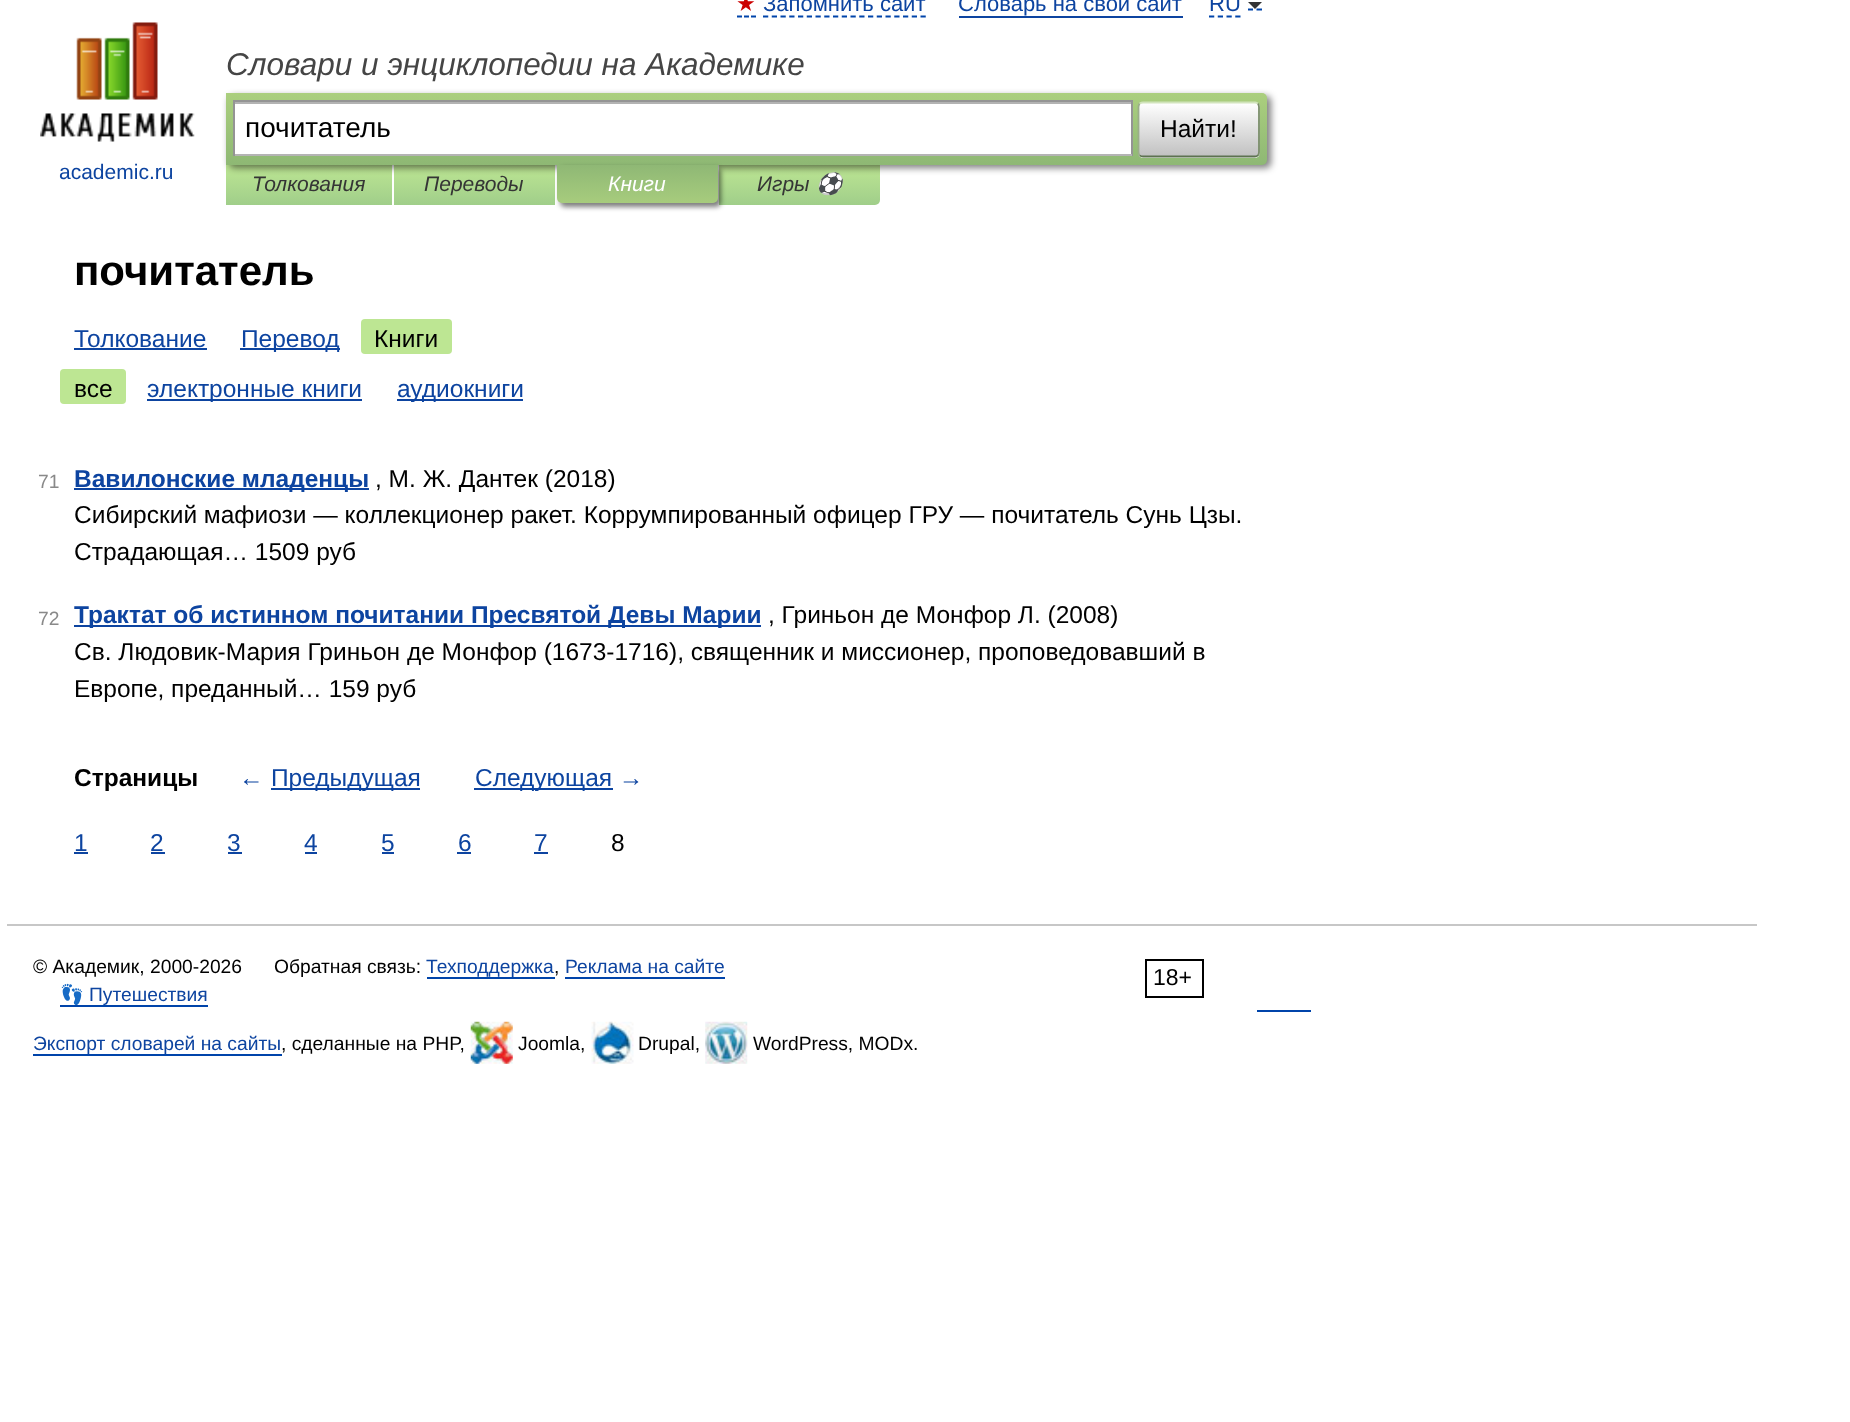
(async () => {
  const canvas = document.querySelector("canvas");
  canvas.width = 1850;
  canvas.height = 1422;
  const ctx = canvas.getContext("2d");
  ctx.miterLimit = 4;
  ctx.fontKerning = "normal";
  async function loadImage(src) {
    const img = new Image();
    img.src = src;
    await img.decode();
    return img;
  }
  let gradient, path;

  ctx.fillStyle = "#ffffff";
  ctx.fillRect(0, 0, 1850, 1422);
  path = new Path2D("M737 16.5H742M744 16.5H749M751 16.5H756");
  ctx.strokeStyle = "#0044aa";
  ctx.lineWidth = 1.8;
  ctx.stroke(path);
  path = new Path2D("M763 16.5H926");
  ctx.setLineDash([5.25, 3.5]);
  ctx.stroke(path);
  ctx.fillStyle = "#0d44a0";
  ctx.fillRect(959, 16, 224, 2);
  path = new Path2D("M1209 16.5H1241");
  ctx.stroke(path);
  path = new Path2D("M1248 9.5H1253M1256.5 9.5H1262");
  ctx.setLineDash([]);
  ctx.stroke(path);
  ctx.fillStyle = "#333333";
  path = new Path2D("M1248 2H1262L1255 9Z");
  ctx.fill(path);
  gradient = ctx.createLinearGradient(309, 165, 309, 205);
  gradient.addColorStop(0, "#bde693");
  gradient.addColorStop(1, "#a0ce8a");
  ctx.fillStyle = gradient;
  ctx.fillRect(226, 165, 166, 40);
  gradient = ctx.createLinearGradient(474, 165, 474, 205);
  gradient.addColorStop(0, "#bde693");
  gradient.addColorStop(1, "#a0ce8a");
  ctx.fillStyle = gradient;
  ctx.fillRect(394, 165, 161, 40);
  gradient = ctx.createLinearGradient(800, 165, 800, 205);
  gradient.addColorStop(0, "#bde693");
  gradient.addColorStop(1, "#a0ce8a");
  ctx.fillStyle = gradient;
  ctx.beginPath();
  ctx.roundRect(719, 165, 161, 40, [0, 0, 5, 0]);
  ctx.fill();
  ctx.fillStyle = "rgba(0, 0, 0, 0.5)";
  ctx.filter = "blur(3.5px)";
  ctx.beginPath();
  ctx.roundRect(229, 96, 1042, 72, 5);
  ctx.fill();
  ctx.filter = "none";
  gradient = ctx.createLinearGradient(746, 93, 746, 165);
  gradient.addColorStop(0, "#abcf7e");
  gradient.addColorStop(1, "#8eb874");
  ctx.fillStyle = gradient;
  ctx.beginPath();
  ctx.roundRect(226, 93, 1041, 72, [0, 5, 5, 0]);
  ctx.fill();
  for (const [x, y, w, h, color] of [
    [235, 104, 896, 50, "#ffffff"],
    [235, 102, 896, 2, "#b3b3b3"],
    [233, 100, 899, 2, "#949494"],
    [1131, 100, 2, 56, "#949494"],
    [233, 154, 899, 2, "#b4b4b4"],
    [233, 100, 2, 56, "#949494"],
  ]) {
    ctx.fillStyle = color;
    ctx.fillRect(x, y, w, h);
  }
  ctx.save();
  ctx.beginPath();
  ctx.roundRect(1138, 102, 122, 56, 5);
  ctx.clip();
  gradient = ctx.createLinearGradient(1199, 103, 1199, 156);
  gradient.addColorStop(0, "#ffffff");
  gradient.addColorStop(1, "#c1c1c1");
  ctx.fillStyle = gradient;
  ctx.fillRect(1138, 103, 122, 53);
  gradient = ctx.createLinearGradient(1199, 156, 1199, 208);
  gradient.addColorStop(0, "#ffffff");
  gradient.addColorStop(1, "#c1c1c1");
  ctx.fillStyle = gradient;
  ctx.fillRect(1138, 156, 122, 2);
  ctx.restore();
  path = new Path2D("M1139.5 103.5C1140.5 103 1141.5 102.5 1143 102.5H1255C1256 102.5 1257 103 1258 103.5");
  ctx.strokeStyle = "#d1e4bc";
  ctx.stroke(path);
  path = new Path2D("M1258 103.5C1258.5 104.5 1259 105.5 1259 107V152C1259 153.5 1258.5 154.5 1258 155.5");
  ctx.strokeStyle = "#7a8e69";
  ctx.stroke(path);
  path = new Path2D("M1258 155.5C1257 156 1256 156.5 1255 156.5H1143C1141.5 156.5 1140.5 156 1139.5 155.5");
  ctx.strokeStyle = "#5d7250";
  ctx.stroke(path);
  path = new Path2D("M1139.5 155.5C1139 154.5 1138.5 153.5 1138.5 152V107C1138.5 105.5 1139 104.5 1139.5 103.5");
  ctx.strokeStyle = "#9aae89";
  ctx.stroke(path);
  ctx.drawImage(await loadImage("img/1.png"), 40, 22, 155, 120);
  ctx.fillStyle = "rgba(0, 0, 0, 0.5)";
  ctx.filter = "blur(2.5px)";
  ctx.beginPath();
  ctx.roundRect(560, 168, 161, 39, 5);
  ctx.fill();
  ctx.filter = "none";
  gradient = ctx.createLinearGradient(637, 165, 637, 203);
  gradient.addColorStop(0, "#8fb875");
  gradient.addColorStop(1, "#a7cc7d");
  ctx.fillStyle = gradient;
  ctx.beginPath();
  ctx.roundRect(557, 165, 161, 38, [0, 0, 5, 5]);
  ctx.fill();
  ctx.fillStyle = "#0d44a0";
  ctx.fillRect(74, 348, 133, 2);
  ctx.fillRect(240, 348, 100, 2);
  ctx.fillStyle = "#bde693";
  ctx.beginPath();
  ctx.roundRect(361, 319, 91, 35, 4);
  ctx.fill();
  ctx.beginPath();
  ctx.roundRect(60, 369, 66, 35, 4);
  ctx.fill();
  for (const [x, y, w, h, color] of [
    [147, 399, 215, 2, "#0d44a0"],
    [397, 399, 126, 2, "#0d44a0"],
    [74, 488, 295, 2, "#0d44a0"],
    [74, 625, 687, 2, "#0d44a0"],
    [271, 788, 149, 2, "#0d44a0"],
    [474, 788, 139, 2, "#0d44a0"],
    [74, 852, 14, 2, "#0d44a0"],
    [151, 852, 14, 2, "#0d44a0"],
    [228, 852, 14, 2, "#0d44a0"],
    [305, 852, 12, 2, "#0d44a0"],
    [382, 852, 12, 2, "#0d44a0"],
    [457, 852, 14, 2, "#0d44a0"],
    [534, 852, 14, 2, "#0d44a0"],
    [7, 924, 1750, 2, "#c7c7c7"],
    [427, 977, 128, 2, "#0044aa"],
    [565, 977, 160, 2, "#0044aa"],
  ]) {
    ctx.fillStyle = color;
    ctx.fillRect(x, y, w, h);
  }
  ctx.strokeStyle = "#000000";
  ctx.lineWidth = 2;
  ctx.strokeRect(1146, 960, 57, 37);
  for (const [x, y, w, h, color] of [
    [60, 1005, 148, 2, "#0044aa"],
    [1257, 1010, 54, 2, "#0044aa"],
    [33, 1054, 249, 2, "#0044aa"],
  ]) {
    ctx.fillStyle = color;
    ctx.fillRect(x, y, w, h);
  }
  ctx.drawImage(await loadImage("img/2.png"), 470, 1021, 43, 43);
  ctx.drawImage(await loadImage("img/3.png"), 591, 1021, 43, 43);
  ctx.drawImage(await loadImage("img/4.png"), 705, 1021, 43, 43);
  ctx.font = "22px DejaVu Sans";
  ctx.fillStyle = "#cc0000";
  ctx.fillText("★", 736, 11);
  ctx.font = "22px Liberation Sans";
  ctx.fillStyle = "#0d44a0";
  for (const [text, x, y] of [
    ["Запомнить сайт", 763, 11],
    ["Словарь на свой сайт", 958, 11],
    ["RU", 1209, 11],
  ]) {
    ctx.fillText(text, x, y);
  }
  ctx.font = "italic 31.5px Liberation Sans";
  ctx.fillStyle = "#454545";
  ctx.fillText("Словари и энциклопедии на Академике", 226, 75);
  ctx.font = "28px Liberation Sans";
  ctx.fillStyle = "#000000";
  ctx.fillText("почитатель", 245, 137);
  ctx.font = "24.5px Liberation Sans";
  ctx.fillText("Найти!", 1160, 137);
  ctx.font = "21px Liberation Sans";
  ctx.fillStyle = "#0d44a0";
  ctx.fillText("academic.ru", 59, 179);
  ctx.font = "italic 21px Liberation Sans";
  ctx.fillStyle = "#353535";
  ctx.fillText("Толкования", 252, 191);
  ctx.fillText("Переводы", 424, 191);
  ctx.fillStyle = "#ffffff";
  ctx.fillText("Книги", 608, 191);
  ctx.fillStyle = "#353535";
  ctx.fillText("Игры", 757, 191);
  ctx.font = "italic 21px Noto Color Emoji";
  ctx.fillText("⚽", 816, 191);
  ctx.font = "bold 42px Liberation Sans";
  ctx.fillStyle = "#000000";
  ctx.fillText("почитатель", 74, 285);
  ctx.font = "24.5px Liberation Sans";
  ctx.fillStyle = "#0d44a0";
  ctx.fillText("Толкование", 74, 347);
  ctx.fillText("Перевод", 241, 347);
  ctx.fillStyle = "#000000";
  ctx.fillText("Книги", 374, 347);
  ctx.fillText("все", 74, 397);
  ctx.fillStyle = "#0d44a0";
  ctx.fillText("электронные книги", 147, 397);
  ctx.fillText("аудиокниги", 397, 397);
  ctx.font = "19.25px Liberation Sans";
  ctx.fillStyle = "#898989";
  ctx.fillText("71", 38, 488);
  ctx.font = "bold 24.5px Liberation Sans";
  ctx.fillStyle = "#0d44a0";
  ctx.fillText("Вавилонские младенцы", 74, 487);
  ctx.font = "24.5px Liberation Sans";
  ctx.fillStyle = "#000000";
  for (const [text, x, y] of [
    [", М. Ж. Дантек (2018)", 375, 487],
    ["Сибирский мафиози — коллекционер ракет. Коррумпированный офицер ГРУ — почитатель Сунь Цзы.", 74, 523],
    ["Страдающая… 1509 руб", 74, 560],
  ]) {
    ctx.fillText(text, x, y);
  }
  ctx.font = "19.25px Liberation Sans";
  ctx.fillStyle = "#898989";
  ctx.fillText("72", 38, 625);
  ctx.font = "bold 24.5px Liberation Sans";
  ctx.fillStyle = "#0d44a0";
  ctx.fillText("Трактат об истинном почитании Пресвятой Девы Марии", 74, 623);
  ctx.font = "24.5px Liberation Sans";
  ctx.fillStyle = "#000000";
  for (const [text, x, y] of [
    [", Гриньон де Монфор Л. (2008)", 768, 623],
    ["Св. Людовик-Мария Гриньон де Монфор (1673-1716), священник и миссионер, проповедовавший в", 74, 660],
    ["Европе, преданный… 159 руб", 74, 697],
  ]) {
    ctx.fillText(text, x, y);
  }
  ctx.font = "bold 24.5px Liberation Sans";
  ctx.fillText("Страницы", 74, 786);
  ctx.font = "24.5px Liberation Sans";
  ctx.fillStyle = "#0d44a0";
  for (const [text, x, y] of [
    ["←", 239, 786],
    ["Предыдущая", 271, 786],
    ["Следующая →", 475, 786],
    ["1", 74, 851],
    ["2", 150, 851],
    ["3", 227, 851],
    ["4", 304, 851],
    ["5", 381, 851],
    ["6", 458, 851],
    ["7", 534, 851],
  ]) {
    ctx.fillText(text, x, y);
  }
  ctx.fillStyle = "#000000";
  ctx.fillText("8", 611, 851);
  ctx.font = "19.25px Liberation Sans";
  ctx.fillText("© Академик, 2000-2026", 33, 973);
  ctx.fillText("Обратная связь:", 274, 973);
  ctx.fillStyle = "#0d44a0";
  ctx.fillText("Техподдержка", 426, 973);
  ctx.fillStyle = "#000000";
  ctx.fillText(",", 554, 973);
  ctx.fillStyle = "#0d44a0";
  ctx.fillText("Реклама на сайте", 565, 973);
  ctx.font = "23px Liberation Sans";
  ctx.fillStyle = "#000000";
  ctx.fillText("18+", 1153, 985);
  ctx.font = "19.25px Noto Color Emoji";
  ctx.fillStyle = "#0d44a0";
  ctx.fillText("👣", 60, 1001);
  ctx.font = "19.25px Liberation Sans";
  ctx.fillText("Путешествия", 89, 1001);
  ctx.fillText("Экспорт словарей на сайты", 33, 1050);
  ctx.fillStyle = "#000000";
  for (const [text, x, y] of [
    [", сделанные на PHP,", 281, 1050],
    ["Joomla,", 518, 1050],
    ["Drupal,", 638, 1050],
    ["WordPress, MODx.", 753, 1050],
  ]) {
    ctx.fillText(text, x, y);
  }
})();
